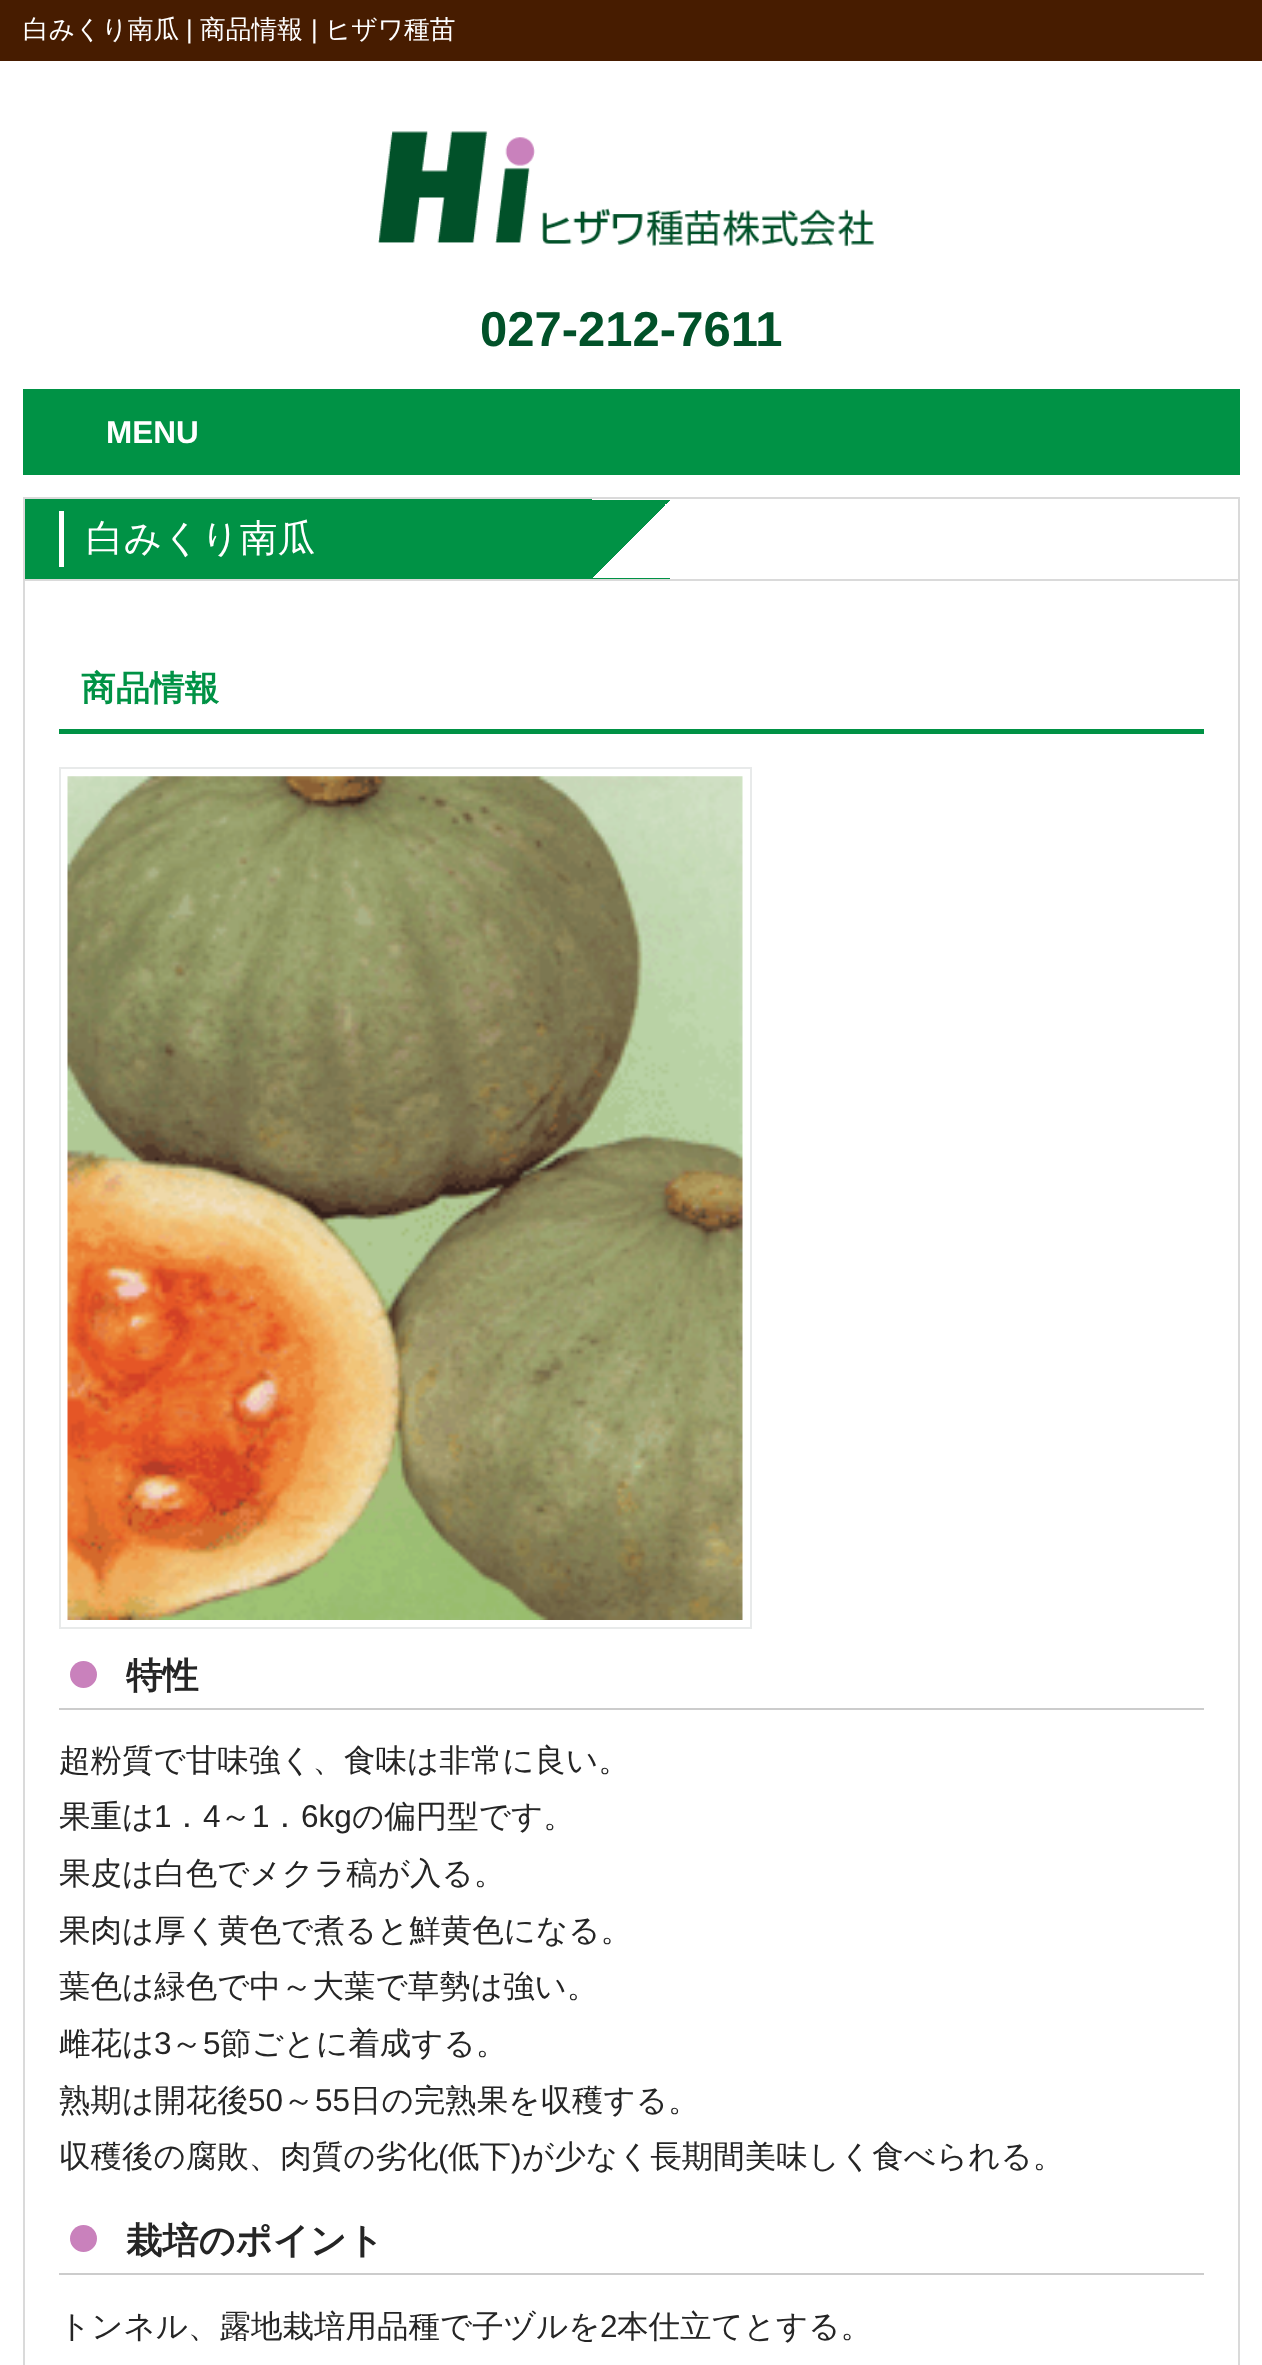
(async () => {
  const canvas = document.querySelector("canvas");
  canvas.width = 1262;
  canvas.height = 2365;
  const ctx = canvas.getContext("2d");
  ctx.miterLimit = 4;
  ctx.fontKerning = "normal";
  async function loadImage(src) {
    const img = new Image();
    img.src = src;
    await img.decode();
    return img;
  }
  let gradient;

  ctx.fillStyle = "#ffffff";
  ctx.fillRect(0, 0, 1262, 2365);
  ctx.fillStyle = "#471c00";
  ctx.fillRect(0, 0, 1262, 61);
  ctx.drawImage(await loadImage("img/1.png"), 378, 131, 496, 116);
  ctx.strokeStyle = "#009245";
  ctx.lineWidth = 5;
  ctx.strokeRect(25.5, 391.5, 1212, 81);
  ctx.fillStyle = "#009245";
  ctx.fillRect(28, 394, 1207, 76);
  gradient = ctx.createLinearGradient(954, 783, 308, 137);
  gradient.addColorStop(0.5, "#ffffff");
  gradient.addColorStop(0.5, "#009245");
  gradient.addColorStop(1, "#009245");
  ctx.fillStyle = gradient;
  ctx.fillRect(25, 499, 567, 1);
  gradient = ctx.createLinearGradient(954, 862, 308, 216);
  gradient.addColorStop(0.5, "#ffffff");
  gradient.addColorStop(0.5, "#009245");
  gradient.addColorStop(1, "#009245");
  ctx.fillStyle = gradient;
  ctx.fillRect(25, 500, 645, 78);
  gradient = ctx.createLinearGradient(954, 941, 308, 295);
  gradient.addColorStop(0.5, "#ffffff");
  gradient.addColorStop(0.5, "#009245");
  gradient.addColorStop(1, "#009245");
  ctx.fillStyle = gradient;
  ctx.fillRect(25, 578, 646, 1);
  ctx.strokeStyle = "#dadada";
  ctx.lineWidth = 2;
  ctx.strokeRect(24, 498, 1215, 82);
  for (const [x, y, w, h, color] of [
    [59, 511, 5, 56, "#ffffff"],
    [1238, 581, 2, 1784, "#dadada"],
    [23, 581, 2, 1784, "#dadada"],
    [59, 729, 1145, 5, "#009245"],
  ]) {
    ctx.fillStyle = color;
    ctx.fillRect(x, y, w, h);
  }
  ctx.strokeStyle = "#e8eaea";
  ctx.strokeRect(60, 768, 691, 860);
  ctx.drawImage(await loadImage("img/2.png"), 67, 776, 676, 844);
  ctx.fillStyle = "#cccccc";
  ctx.fillRect(59, 1708, 1145, 2);
  ctx.fillStyle = "#c981bc";
  ctx.beginPath();
  ctx.arc(83.5, 1674.5, 13.5, 0, Math.PI * 2);
  ctx.fill();
  ctx.fillStyle = "#cccccc";
  ctx.fillRect(59, 2273, 1145, 2);
  ctx.fillStyle = "#c981bc";
  ctx.beginPath();
  ctx.arc(83.5, 2238.5, 13.5, 0, Math.PI * 2);
  ctx.fill();
  ctx.font = "500 25.75px WenQuanYi Zen Hei";
  ctx.fillStyle = "#ffffff";
  ctx.fillText("白みくり南瓜", 23, 38);
  ctx.font = "25.75px Liberation Sans";
  ctx.fillText("|", 186, 38);
  ctx.font = "500 25.75px WenQuanYi Zen Hei";
  ctx.fillText("商品情報", 200, 38);
  ctx.font = "25.75px Liberation Sans";
  ctx.fillText("|", 311, 38);
  ctx.font = "500 25.75px WenQuanYi Zen Hei";
  ctx.fillText("ヒザワ種苗", 325, 38);
  ctx.font = "bold 49px Liberation Sans";
  ctx.fillStyle = "#015129";
  ctx.fillText("027-212-7611", 480, 346);
  ctx.font = "bold 31.5px Liberation Sans";
  ctx.fillStyle = "#ffffff";
  ctx.fillText("MENU", 106, 443);
  ctx.font = "500 37.75px WenQuanYi Zen Hei";
  ctx.fillText("白みくり南瓜", 86, 551);
  ctx.font = "bold 34.5px WenQuanYi Zen Hei";
  ctx.fillStyle = "#009245";
  ctx.fillText("商品情報", 81, 700);
  ctx.font = "bold 36.25px WenQuanYi Zen Hei";
  ctx.fillStyle = "#252525";
  ctx.fillText("特性", 126, 1688);
  ctx.font = "500 31.5px WenQuanYi Zen Hei";
  ctx.fillText("超粉質で甘味強く、食味は非常に良い。", 59, 1771);
  ctx.fillText("果重は", 59, 1827);
  ctx.font = "31.5px Liberation Sans";
  ctx.fillText("1", 154, 1827);
  ctx.fillText("4", 203, 1827);
  ctx.font = "500 31.5px WenQuanYi Zen Hei";
  ctx.fillText("～", 220, 1827);
  ctx.font = "31.5px Liberation Sans";
  ctx.fillText("1", 252, 1827);
  ctx.fillText("6kg", 301, 1827);
  ctx.font = "500 31.5px WenQuanYi Zen Hei";
  for (const [text, x, y] of [
    ["の偏円型です。", 352, 1827],
    ["．", 171, 1827],
    ["．", 269, 1827],
    ["果皮は白色でメクラ稿が入る。", 59, 1884],
    ["果肉は厚く黄色で煮ると鮮黄色になる。", 59, 1941],
    ["葉色は緑色で中～大葉で草勢は強い。", 59, 1997],
    ["雌花は", 59, 2054],
  ]) {
    ctx.fillText(text, x, y);
  }
  ctx.font = "31.5px Liberation Sans";
  ctx.fillText("3", 154, 2054);
  ctx.font = "500 31.5px WenQuanYi Zen Hei";
  ctx.fillText("～", 171, 2054);
  ctx.font = "31.5px Liberation Sans";
  ctx.fillText("5", 203, 2054);
  ctx.font = "500 31.5px WenQuanYi Zen Hei";
  ctx.fillText("節ごとに着成する。", 220, 2054);
  ctx.fillText("熟期は開花後", 59, 2111);
  ctx.font = "31.5px Liberation Sans";
  ctx.fillText("50", 248, 2111);
  ctx.font = "500 31.5px WenQuanYi Zen Hei";
  ctx.fillText("～", 283, 2111);
  ctx.font = "31.5px Liberation Sans";
  ctx.fillText("55", 315, 2111);
  ctx.font = "500 31.5px WenQuanYi Zen Hei";
  ctx.fillText("日の完熟果を収穫する。", 350, 2111);
  ctx.fillText("収穫後の腐敗、肉質の劣化", 59, 2167);
  ctx.font = "31.5px Liberation Sans";
  ctx.fillText("(", 438, 2167);
  ctx.font = "500 31.5px WenQuanYi Zen Hei";
  ctx.fillText("低下", 448, 2167);
  ctx.font = "31.5px Liberation Sans";
  ctx.fillText(")", 511, 2167);
  ctx.font = "500 31.5px WenQuanYi Zen Hei";
  ctx.fillText("が少なく長期間美味しく食べられる。", 522, 2167);
  ctx.font = "bold 36.25px WenQuanYi Zen Hei";
  ctx.fillText("栽培のポイント", 126, 2253);
  ctx.font = "500 31.5px WenQuanYi Zen Hei";
  ctx.fillText("トンネル、露地栽培用品種で子ヅルを", 59, 2337);
  ctx.font = "31.5px Liberation Sans";
  ctx.fillText("2", 600, 2337);
  ctx.font = "500 31.5px WenQuanYi Zen Hei";
  ctx.fillText("本仕立てとする。", 617, 2337);
})();
